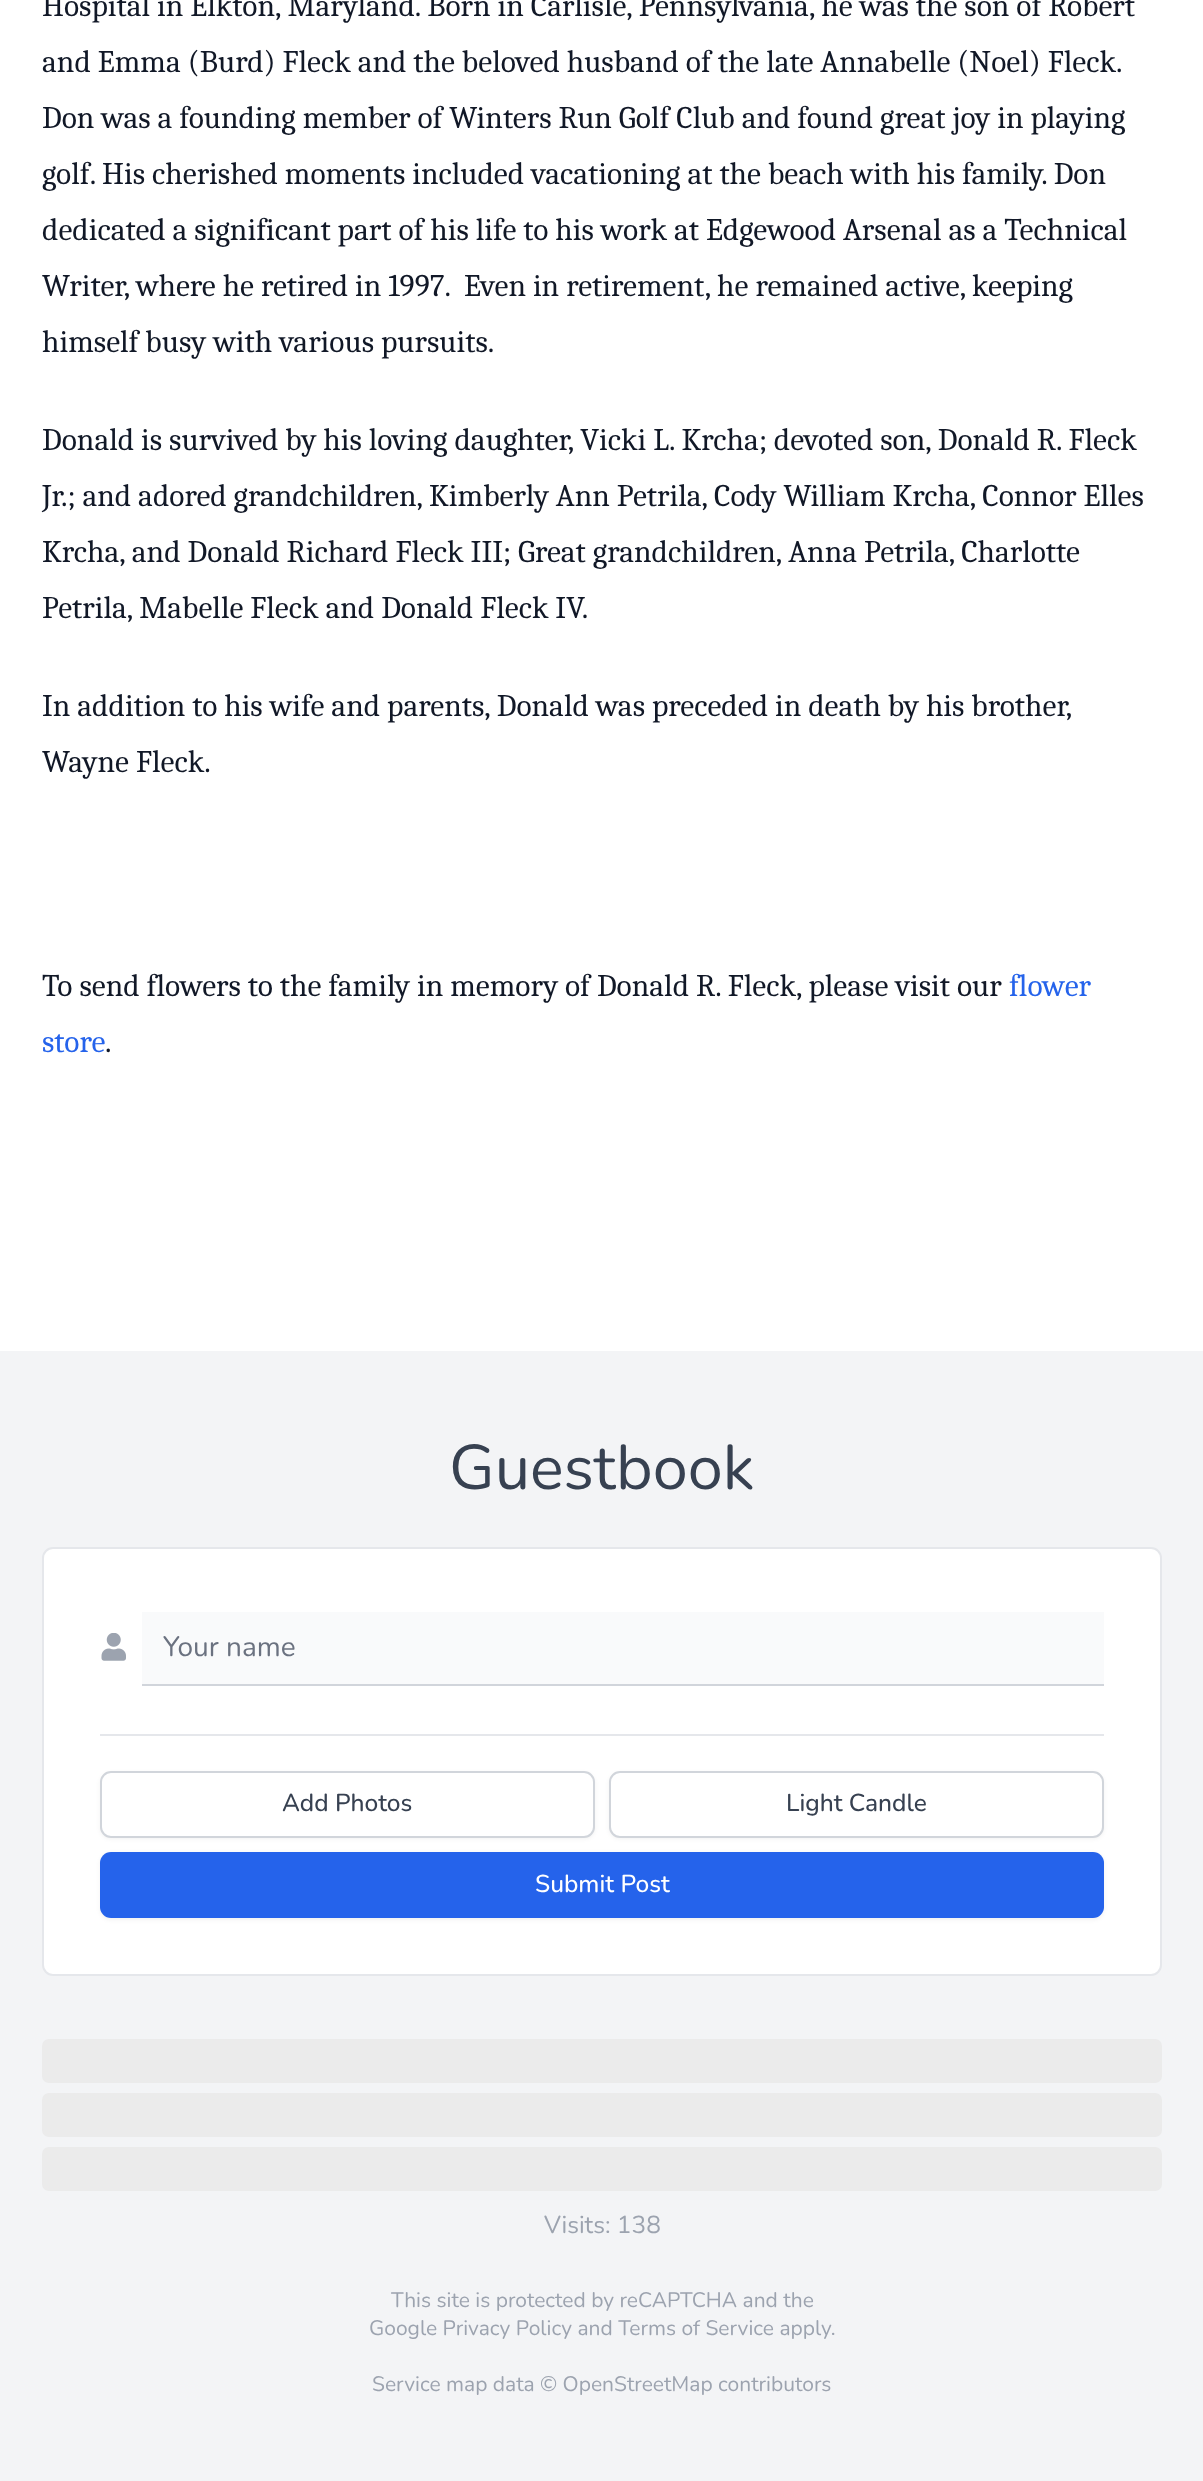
(async () => {
  const canvas = document.querySelector("canvas");
  canvas.width = 1203;
  canvas.height = 2481;
  const ctx = canvas.getContext("2d");
  ctx.miterLimit = 4;
  ctx.fontKerning = "normal";
  async function loadImage(src) {
    const img = new Image();
    img.src = src;
    await img.decode();
    return img;
  }

  ctx.fillStyle = "#ffffff";
  ctx.fillRect(0, 0, 1203, 2481);
  ctx.fillStyle = "#f3f4f6";
  ctx.fillRect(0, 1351, 1203, 1130);
  ctx.fillStyle = "#ffffff";
  ctx.beginPath();
  ctx.roundRect(43, 1548, 1118, 427, 10);
  ctx.fill();
  ctx.strokeStyle = "#e5e7eb";
  ctx.lineWidth = 2;
  ctx.stroke();
  ctx.drawImage(await loadImage("img/1.png"), 101, 1633, 25, 28);
  for (const [x, y, w, h, color] of [
    [142, 1684, 962, 2, "#d1d5db"],
    [142, 1612, 962, 72, "#f9fafb"],
    [100, 1734, 1004, 2, "#e5e7eb"],
  ]) {
    ctx.fillStyle = color;
    ctx.fillRect(x, y, w, h);
  }
  ctx.fillStyle = "rgba(0, 0, 0, 0.05)";
  ctx.filter = "blur(2px)";
  ctx.beginPath();
  ctx.roundRect(100, 1773, 495, 66, 11);
  ctx.fill();
  ctx.filter = "none";
  ctx.fillStyle = "#ffffff";
  ctx.beginPath();
  ctx.roundRect(101, 1772, 493, 65, 10);
  ctx.fill();
  ctx.strokeStyle = "#d1d5db";
  ctx.stroke();
  ctx.fillStyle = "rgba(0, 0, 0, 0.05)";
  ctx.filter = "blur(2px)";
  ctx.beginPath();
  ctx.roundRect(609, 1773, 495, 66, 11);
  ctx.fill();
  ctx.filter = "none";
  ctx.fillStyle = "#ffffff";
  ctx.beginPath();
  ctx.roundRect(610, 1772, 493, 65, 10);
  ctx.fill();
  ctx.stroke();
  ctx.fillStyle = "rgba(0, 0, 0, 0.05)";
  ctx.filter = "blur(2px)";
  ctx.beginPath();
  ctx.roundRect(100, 1853, 1004, 67, 11);
  ctx.fill();
  ctx.filter = "none";
  ctx.fillStyle = "#2563eb";
  ctx.beginPath();
  ctx.roundRect(100, 1852, 1004, 66, 11);
  ctx.fill();
  ctx.fillStyle = "#ebebeb";
  ctx.beginPath();
  ctx.roundRect(42, 2039, 1120, 44, 7);
  ctx.fill();
  ctx.beginPath();
  ctx.roundRect(42, 2093, 1120, 44, 7);
  ctx.fill();
  ctx.beginPath();
  ctx.roundRect(42, 2147, 1120, 44, 7);
  ctx.fill();
  ctx.font = "31.5px Caladea";
  ctx.fillStyle = "#111827";
  for (const [text, x, y] of [
    ["Hospital in Elkton, Maryland. Born in Carlisle, Pennsylvania, he was the son of Robert", 42, 16],
    ["and Emma (Burd) Fleck and the beloved husband of the late Annabelle (Noel) Fleck.", 42, 72],
    ["Don was a founding member of Winters Run Golf Club and found great joy in playing", 42, 128],
    ["golf. His cherished moments included vacationing at the beach with his family. Don", 42, 184],
    ["dedicated a significant part of his life to his work at Edgewood Arsenal as a Technical", 42, 240],
    ["Writer, where he retired in 1997.  Even in retirement, he remained active, keeping", 42, 296],
    ["himself busy with various pursuits.", 42, 352],
    ["Donald is survived by his loving daughter, Vicki L. Krcha; devoted son, Donald R. Fleck", 42, 450],
    ["Jr.; and adored grandchildren, Kimberly Ann Petrila, Cody William Krcha, Connor Elles", 42, 506],
    ["Krcha, and Donald Richard Fleck III; Great grandchildren, Anna Petrila, Charlotte", 42, 562],
    ["Petrila, Mabelle Fleck and Donald Fleck IV.", 42, 618],
    ["In addition to his wife and parents, Donald was preceded in death by his brother,", 42, 716],
    ["Wayne Fleck.", 42, 772],
    ["To send flowers to the family in memory of Donald R. Fleck, please visit our", 42, 996],
  ]) {
    ctx.fillText(text, x, y);
  }
  ctx.fillStyle = "#2563eb";
  ctx.fillText("flower", 1009, 996);
  ctx.fillText("store", 42, 1052);
  ctx.fillStyle = "#111827";
  ctx.fillText(".", 105, 1052);
  ctx.font = "63px Nunito";
  ctx.fillStyle = "#374151";
  ctx.fillText("Guestbook", 449, 1489);
  ctx.font = "28px Nunito";
  ctx.fillStyle = "#6b7280";
  ctx.fillText("Your name", 163, 1656);
  ctx.font = "500 24.5px Nunito";
  ctx.fillStyle = "#374151";
  ctx.fillText("Add Photos", 282, 1811);
  ctx.fillText("Light Candle", 786, 1811);
  ctx.fillStyle = "#ffffff";
  ctx.fillText("Submit Post", 535, 1892);
  ctx.font = "24.5px Nunito";
  ctx.fillStyle = "#9ca3af";
  ctx.fillText("Visits: 138", 544, 2233);
  ctx.font = "21px Nunito";
  for (const [text, x, y] of [
    ["This site is protected by reCAPTCHA and the", 391, 2307],
    ["Google Privacy Policy and Terms of Service apply.", 369, 2335],
    ["Service map data © OpenStreetMap contributors", 372, 2391],
  ]) {
    ctx.fillText(text, x, y);
  }
})();
